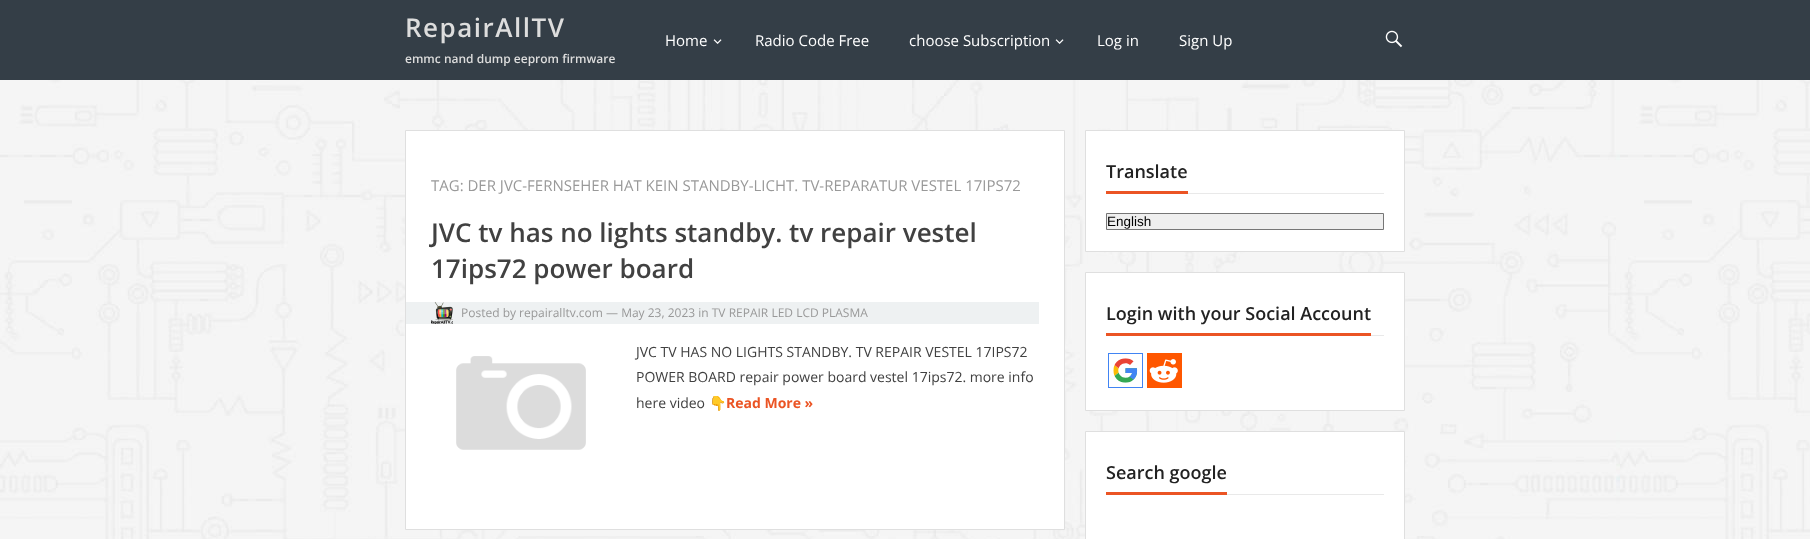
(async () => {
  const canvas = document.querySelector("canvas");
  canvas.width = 1810;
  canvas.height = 539;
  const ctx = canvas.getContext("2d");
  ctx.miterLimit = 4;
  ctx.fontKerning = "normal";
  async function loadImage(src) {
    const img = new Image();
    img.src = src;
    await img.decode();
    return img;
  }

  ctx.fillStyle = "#ffffff";
  ctx.fillRect(0, 0, 1810, 539);
  ctx.drawImage(await loadImage("img/1.png"), 0, 80, 1810, 459);
  ctx.fillStyle = "#343e47";
  ctx.fillRect(0, 0, 1810, 80);
  ctx.drawImage(await loadImage("img/2.png"), 713, 39, 9, 5);
  ctx.drawImage(await loadImage("img/2.png"), 1055, 39, 9, 5);
  ctx.drawImage(await loadImage("img/3.png"), 1385, 30, 18, 18);
  ctx.fillStyle = "#ffffff";
  ctx.beginPath();
  ctx.rect(405.5, 130.5, 659, 399);
  ctx.fill();
  ctx.strokeStyle = "#dfdfdf";
  ctx.stroke();
  ctx.fillStyle = "#eef1f2";
  ctx.fillRect(406, 302, 633, 22);
  ctx.drawImage(await loadImage("img/4.png"), 431, 302, 22, 22);
  ctx.drawImage(await loadImage("img/5.png"), 456, 356, 130, 94);
  ctx.fillStyle = "#ffffff";
  ctx.beginPath();
  ctx.rect(1085.5, 130.5, 319, 121);
  ctx.fill();
  ctx.stroke();
  ctx.fillStyle = "#e9e9e9";
  ctx.fillRect(1188, 193, 196, 1);
  ctx.fillStyle = "#eb5424";
  ctx.fillRect(1106, 191, 82, 3);
  ctx.fillStyle = "#efefef";
  ctx.beginPath();
  ctx.rect(1106.5, 213.5, 277, 16);
  ctx.fill();
  ctx.strokeStyle = "#767676";
  ctx.stroke();
  ctx.fillStyle = "#ffffff";
  ctx.beginPath();
  ctx.rect(1085.5, 272.5, 319, 138);
  ctx.fill();
  ctx.strokeStyle = "#dfdfdf";
  ctx.stroke();
  ctx.fillStyle = "#e9e9e9";
  ctx.fillRect(1371, 335, 13, 1);
  ctx.fillStyle = "#eb5424";
  ctx.fillRect(1106, 333, 265, 3);
  ctx.strokeStyle = "#4184f3";
  ctx.strokeRect(1108.5, 353.5, 34, 34);
  ctx.drawImage(await loadImage("img/6.png"), 1113, 358, 25, 25);
  ctx.fillStyle = "#ff5700";
  ctx.fillRect(1147, 353, 35, 35);
  ctx.drawImage(await loadImage("img/7.png"), 1149, 359, 29, 24);
  ctx.fillStyle = "#ffffff";
  ctx.beginPath();
  ctx.rect(1085.5, 431.5, 319, 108);
  ctx.fill();
  ctx.strokeStyle = "#dfdfdf";
  ctx.stroke();
  ctx.fillStyle = "#e9e9e9";
  ctx.fillRect(1227, 494, 157, 1);
  ctx.fillStyle = "#eb5424";
  ctx.fillRect(1106, 492, 121, 3);
  ctx.letterSpacing = "1.5px";
  ctx.font = "600 26px Open Sans";
  ctx.fillStyle = "#dddddd";
  ctx.fillText("RepairAllTV", 405, 37);
  ctx.letterSpacing = "0px";
  ctx.font = "600 12px Open Sans";
  ctx.fillText("emmc nand dump eeprom firmware", 405, 63);
  ctx.font = "15px Open Sans";
  ctx.fillStyle = "#ffffff";
  for (const [text, x, y] of [
    ["Home", 665, 46],
    ["Radio Code Free", 755, 46],
    ["choose Subscription", 909, 46],
    ["Log in", 1097, 46],
    ["Sign Up", 1179, 46],
  ]) {
    ctx.fillText(text, x, y);
  }
  ctx.fillStyle = "#999999";
  ctx.fillText("TAG: DER JVC-FERNSEHER HAT KEIN STANDBY-LICHT. TV-REPARATUR VESTEL 17IPS72", 431, 191);
  ctx.font = "600 26px Open Sans";
  ctx.fillStyle = "#414141";
  ctx.fillText("JVC tv has no lights standby. tv repair vestel", 431, 242);
  ctx.fillText("17ips72 power board", 431, 278);
  ctx.font = "12px Open Sans";
  ctx.fillStyle = "#999999";
  ctx.fillText("Posted by repairalltv.com — May 23, 2023 in TV REPAIR LED LCD PLASMA", 461, 317);
  ctx.font = "14px Open Sans";
  ctx.fillStyle = "#414141";
  for (const [text, x, y] of [
    ["JVC TV HAS NO LIGHTS STANDBY. TV REPAIR VESTEL 17IPS72", 636, 357],
    ["POWER BOARD repair power board vestel 17ips72. more info", 636, 382],
    ["here video", 636, 408],
  ]) {
    ctx.fillText(text, x, y);
  }
  ctx.font = "14px Noto Color Emoji";
  ctx.fillText("👇", 709, 408);
  ctx.font = "bold 14px Open Sans";
  ctx.fillStyle = "#eb5424";
  ctx.fillText("Read More »", 726, 408);
  ctx.font = "600 18px Open Sans";
  ctx.fillStyle = "#222222";
  ctx.fillText("Translate", 1106, 178);
  ctx.font = "13.5px Liberation Sans";
  ctx.fillStyle = "#000000";
  ctx.fillText("English", 1107, 226);
  ctx.font = "600 18px Open Sans";
  ctx.fillStyle = "#222222";
  ctx.fillText("Login with your Social Account", 1106, 320);
  ctx.fillText("Search google", 1106, 479);
})();
